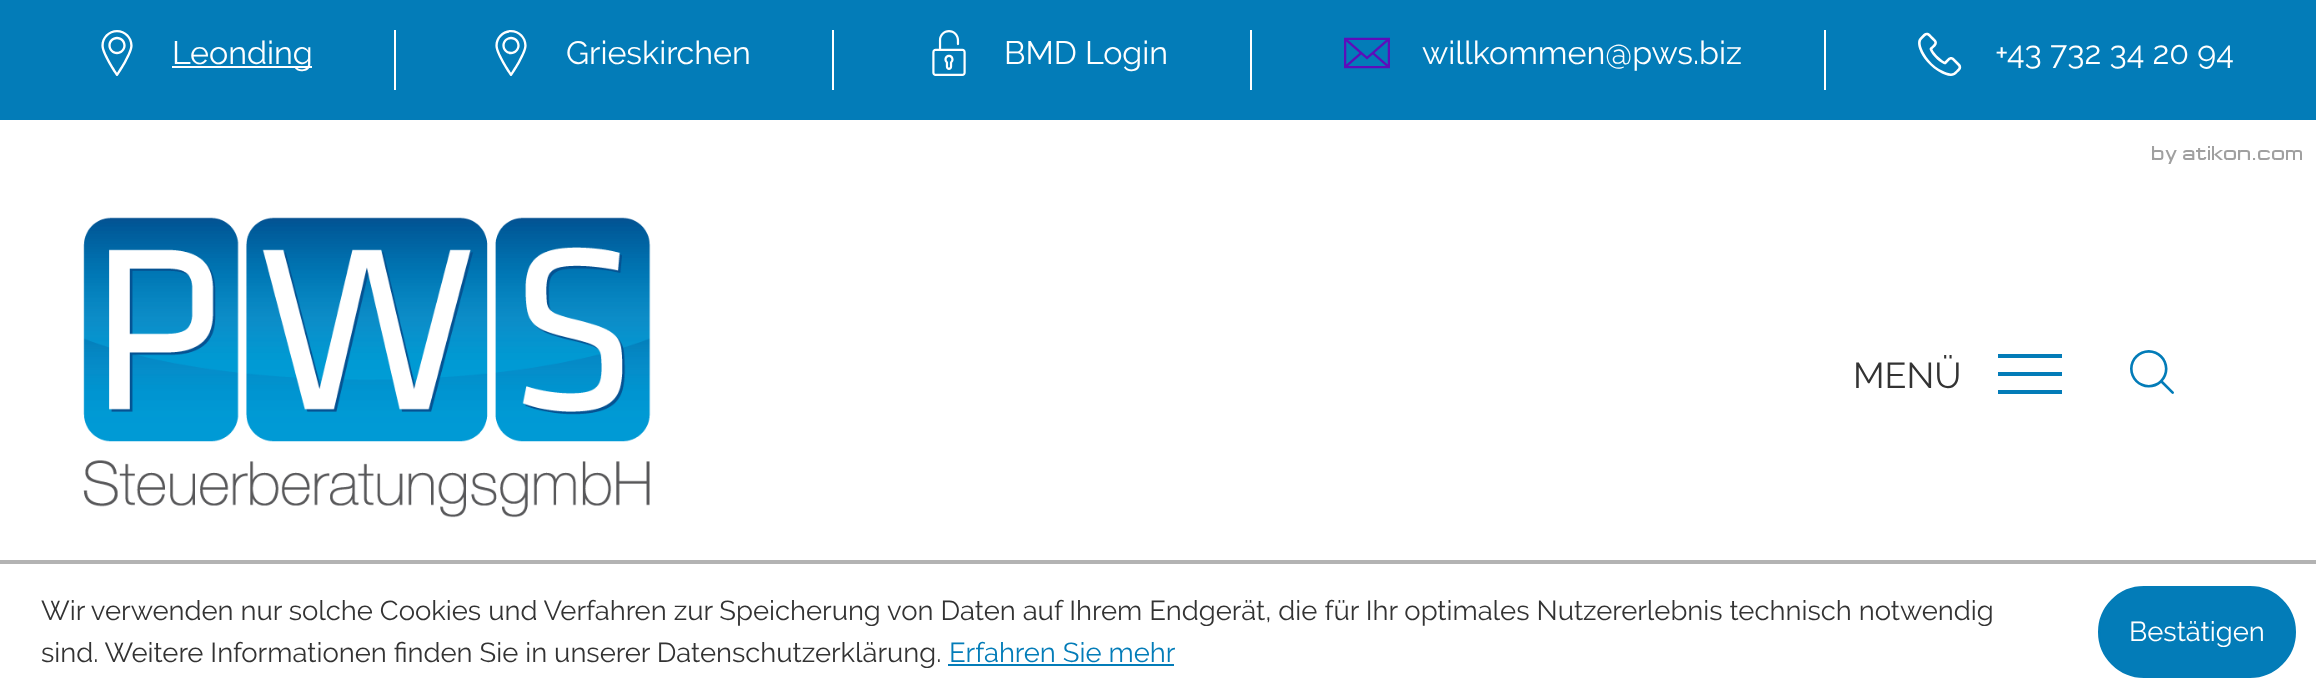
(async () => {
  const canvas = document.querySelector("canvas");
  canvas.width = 2316;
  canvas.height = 699;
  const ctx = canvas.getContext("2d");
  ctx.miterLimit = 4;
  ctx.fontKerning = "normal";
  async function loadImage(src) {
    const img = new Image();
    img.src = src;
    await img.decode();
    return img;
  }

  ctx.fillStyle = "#ffffff";
  ctx.fillRect(0, 0, 2316, 699);
  ctx.fillStyle = "#037cb8";
  ctx.fillRect(0, 0, 2316, 120);
  ctx.drawImage(await loadImage("img/1.png"), 101, 30, 32, 46);
  ctx.fillStyle = "#ffffff";
  ctx.fillRect(172, 66, 140, 2);
  ctx.fillRect(394, 30, 2, 60);
  ctx.drawImage(await loadImage("img/2.png"), 495, 30, 32, 46);
  ctx.fillRect(832, 30, 2, 60);
  ctx.drawImage(await loadImage("img/3.png"), 932, 30, 34, 46);
  ctx.fillRect(1250, 30, 2, 60);
  ctx.drawImage(await loadImage("img/4.png"), 1344, 37, 46, 32);
  ctx.fillRect(1824, 30, 2, 60);
  ctx.drawImage(await loadImage("img/5.png"), 1918, 32, 44, 44);
  ctx.drawImage(await loadImage("img/6.png"), 83, 217, 568, 301);
  ctx.drawImage(await loadImage("img/7.png"), 2152, 146, 150, 18);
  for (const [x, y, w, h, color] of [
    [1998, 354, 64, 4, "#037cb8"],
    [1998, 372, 64, 4, "#037cb8"],
    [1998, 390, 64, 4, "#037cb8"],
  ]) {
    ctx.fillStyle = color;
    ctx.fillRect(x, y, w, h);
  }
  ctx.drawImage(await loadImage("img/8.png"), 2130, 350, 44, 44);
  ctx.fillStyle = "#b3b3b3";
  ctx.fillRect(0, 560, 2316, 4);
  ctx.fillStyle = "#037cb8";
  ctx.fillRect(948, 664, 226, 2);
  ctx.beginPath();
  ctx.roundRect(2099, 587, 196, 90, 45);
  ctx.fill();
  ctx.strokeStyle = "#037cb8";
  ctx.lineWidth = 2;
  ctx.stroke();
  ctx.font = "32.25px Raleway";
  ctx.fillStyle = "#ffffff";
  for (const [text, x, y] of [
    ["Leonding", 172, 64],
    ["Grieskirchen", 566, 64],
    ["BMD Login", 1004, 64],
    ["willkommen@pws.biz", 1422, 64],
    ["+43 732 34 20 94", 1995, 64],
  ]) {
    ctx.fillText(text, x, y);
  }
  ctx.font = "36px Raleway";
  ctx.fillStyle = "#333333";
  ctx.fillText("MENÜ", 1853, 388);
  ctx.font = "27.42px Raleway";
  ctx.fillText("Wir verwenden nur solche Cookies und Verfahren zur Speicherung von Daten auf Ihrem Endgerät, die für Ihr optimales Nutzererlebnis technisch notwendig", 41, 620);
  ctx.fillText("sind. Weitere Informationen finden Sie in unserer Datenschutzerklärung.", 41, 662);
  ctx.fillStyle = "#037cb8";
  ctx.fillText("Erfahren Sie mehr", 949, 662);
  ctx.fillStyle = "#ffffff";
  ctx.fillText("Bestätigen", 2129, 641);
})();
